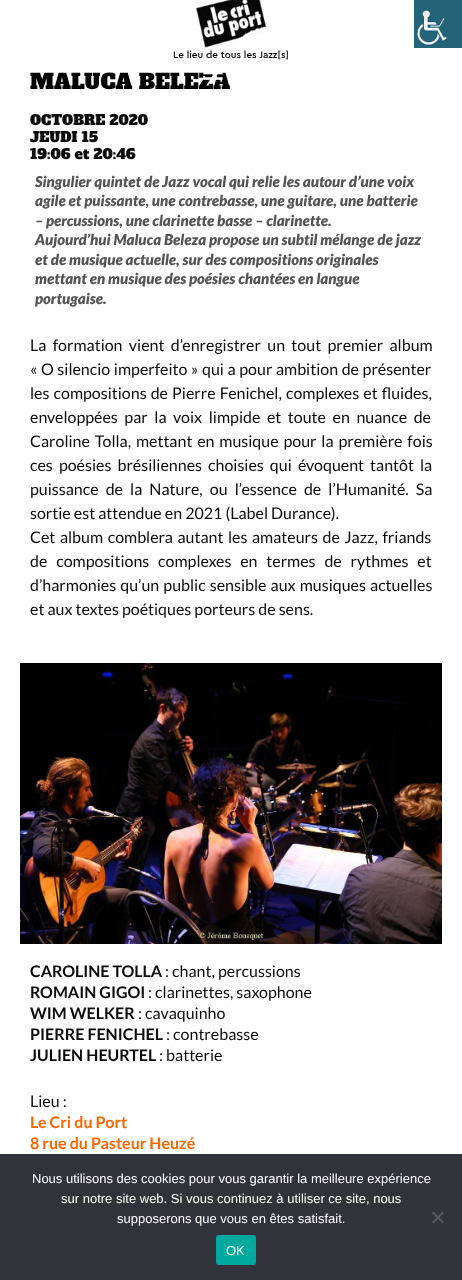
(async () => {
  const canvas = document.querySelector("canvas");
  canvas.width = 462;
  canvas.height = 1280;
  const ctx = canvas.getContext("2d");
  ctx.miterLimit = 4;
  ctx.fontKerning = "normal";
  async function loadImage(src) {
    const img = new Image();
    img.src = src;
    await img.decode();
    return img;
  }
  let path;

  ctx.fillStyle = "#ffffff";
  ctx.fillRect(0, 0, 462, 1280);
  ctx.drawImage(await loadImage("img/1.png"), 414, 0, 48, 48);
  ctx.drawImage(await loadImage("img/2.png"), 195, 0, 72, 48);
  ctx.drawImage(await loadImage("img/4.png"), 20, 663, 422, 281);
  ctx.fillStyle = "#32323a";
  ctx.fillRect(0, 1154, 462, 126);
  ctx.fillStyle = "#59595d";
  path = new Path2D("M442.5 1211.5L444 1213L433.5 1223.5L432 1222Z");
  ctx.fill(path);
  path = new Path2D("M432 1213L433.5 1211.5L444 1222L442.5 1223.5Z");
  ctx.fill(path);
  ctx.fillStyle = "#00a99d";
  ctx.beginPath();
  ctx.roundRect(216, 1235, 40, 30, 3);
  ctx.fill();
  ctx.font = "500 10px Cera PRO";
  ctx.fillStyle = "#000000";
  ctx.fillText("Le lieu de tous les Jazz[s]", 173, 58);
  ctx.font = "21px Alfa Slab One";
  ctx.fillText("MALUCA BELEZA", 30, 89);
  ctx.drawImage(await loadImage("img/3.png"), 203, 72, 20, 8);
  ctx.font = "14px Alfa Slab One";
  ctx.fillStyle = "#0c0c0c";
  for (const [text, x, y] of [
    ["OCTOBRE 2020", 30, 125],
    ["JEUDI 15", 30, 142],
    ["19:06 et 20:46", 30, 159],
  ]) {
    ctx.fillText(text, x, y);
  }
  ctx.font = "italic 900 15px Lato";
  ctx.fillStyle = "#545454";
  for (const [text, x, y] of [
    ["Singulier quintet de Jazz vocal qui relie les autour d’une voix", 35, 187],
    ["agile et puissante, une contrebasse, une guitare, une batterie", 35, 206],
    ["– percussions, une clarinette basse – clarinette.", 35, 226],
    ["Aujourd’hui Maluca Beleza propose un subtil mélange de jazz", 35, 245],
    ["et de musique actuelle, sur des compositions originales", 35, 265],
    ["mettant en musique des poésies chantées en langue", 35, 284],
    ["portugaise.", 35, 304],
  ]) {
    ctx.fillText(text, x, y);
  }
  ctx.wordSpacing = "3.25px";
  ctx.font = "16px Lato";
  ctx.fillStyle = "#0c0c0c";
  ctx.fillText("La formation vient d’enregistrer un tout premier album", 30, 351);
  ctx.wordSpacing = "0.5px";
  ctx.fillText("« O silencio imperfeito » qui a pour ambition de présenter", 30, 375);
  ctx.wordSpacing = "1px";
  ctx.fillText("les compositions de Pierre Fenichel, complexes et fluides,", 30, 399);
  ctx.wordSpacing = "3.5px";
  ctx.fillText("enveloppées par la voix limpide et toute en nuance de", 30, 423);
  ctx.wordSpacing = "1.75px";
  ctx.fillText("Caroline Tolla, mettant en musique pour la première fois", 30, 447);
  ctx.wordSpacing = "3px";
  ctx.fillText("ces poésies brésiliennes choisies qui évoquent tantôt la", 30, 471);
  ctx.wordSpacing = "4px";
  ctx.fillText("puissance de la Nature, ou l’essence de l’Humanité. Sa", 30, 495);
  ctx.wordSpacing = "0px";
  ctx.fillText("sortie est attendue en 2021 (Label Durance).", 30, 519);
  ctx.wordSpacing = "1.5px";
  ctx.fillText("Cet album comblera autant les amateurs de Jazz, friands", 30, 543);
  ctx.wordSpacing = "5.75px";
  ctx.fillText("de compositions complexes en termes de rythmes et", 30, 567);
  ctx.wordSpacing = "1px";
  ctx.fillText("d’harmonies qu’un public sensible aux musiques actuelles", 30, 591);
  ctx.wordSpacing = "0px";
  ctx.fillText("et aux textes poétiques porteurs de sens.", 30, 615);
  ctx.font = "bold 16px Lato";
  ctx.fillText("CAROLINE TOLLA", 30, 977);
  ctx.font = "16px Lato";
  ctx.fillText(": chant, percussions", 165, 977);
  ctx.font = "bold 16px Lato";
  ctx.fillText("ROMAIN GIGOI", 30, 998);
  ctx.font = "16px Lato";
  ctx.fillText(": clarinettes, saxophone", 148, 998);
  ctx.font = "bold 16px Lato";
  ctx.fillText("WIM WELKER", 30, 1019);
  ctx.font = "16px Lato";
  ctx.fillText(": cavaquinho", 138, 1019);
  ctx.font = "bold 16px Lato";
  ctx.fillText("PIERRE FENICHEL", 30, 1040);
  ctx.font = "16px Lato";
  ctx.fillText(": contrebasse", 166, 1040);
  ctx.font = "bold 16px Lato";
  ctx.fillText("JULIEN HEURTEL", 30, 1061);
  ctx.font = "16px Lato";
  ctx.fillText(": batterie", 159, 1061);
  ctx.fillText("Lieu :", 30, 1107);
  ctx.font = "bold 16px Lato";
  ctx.fillStyle = "#ff6600";
  ctx.fillText("Le Cri du Port", 30, 1128);
  ctx.fillText("8 rue du Pasteur Heuzé", 30, 1149);
  ctx.font = "13px Liberation Sans";
  ctx.fillStyle = "#ffffff";
  for (const [text, x, y] of [
    ["Nous utilisons des cookies pour vous garantir la meilleure expérience", 32, 1183],
    ["sur notre site web. Si vous continuez à utiliser ce site, nous", 61, 1203],
    ["supposerons que vous en êtes satisfait.", 117, 1223],
    ["OK", 226, 1255],
  ]) {
    ctx.fillText(text, x, y);
  }
})();
